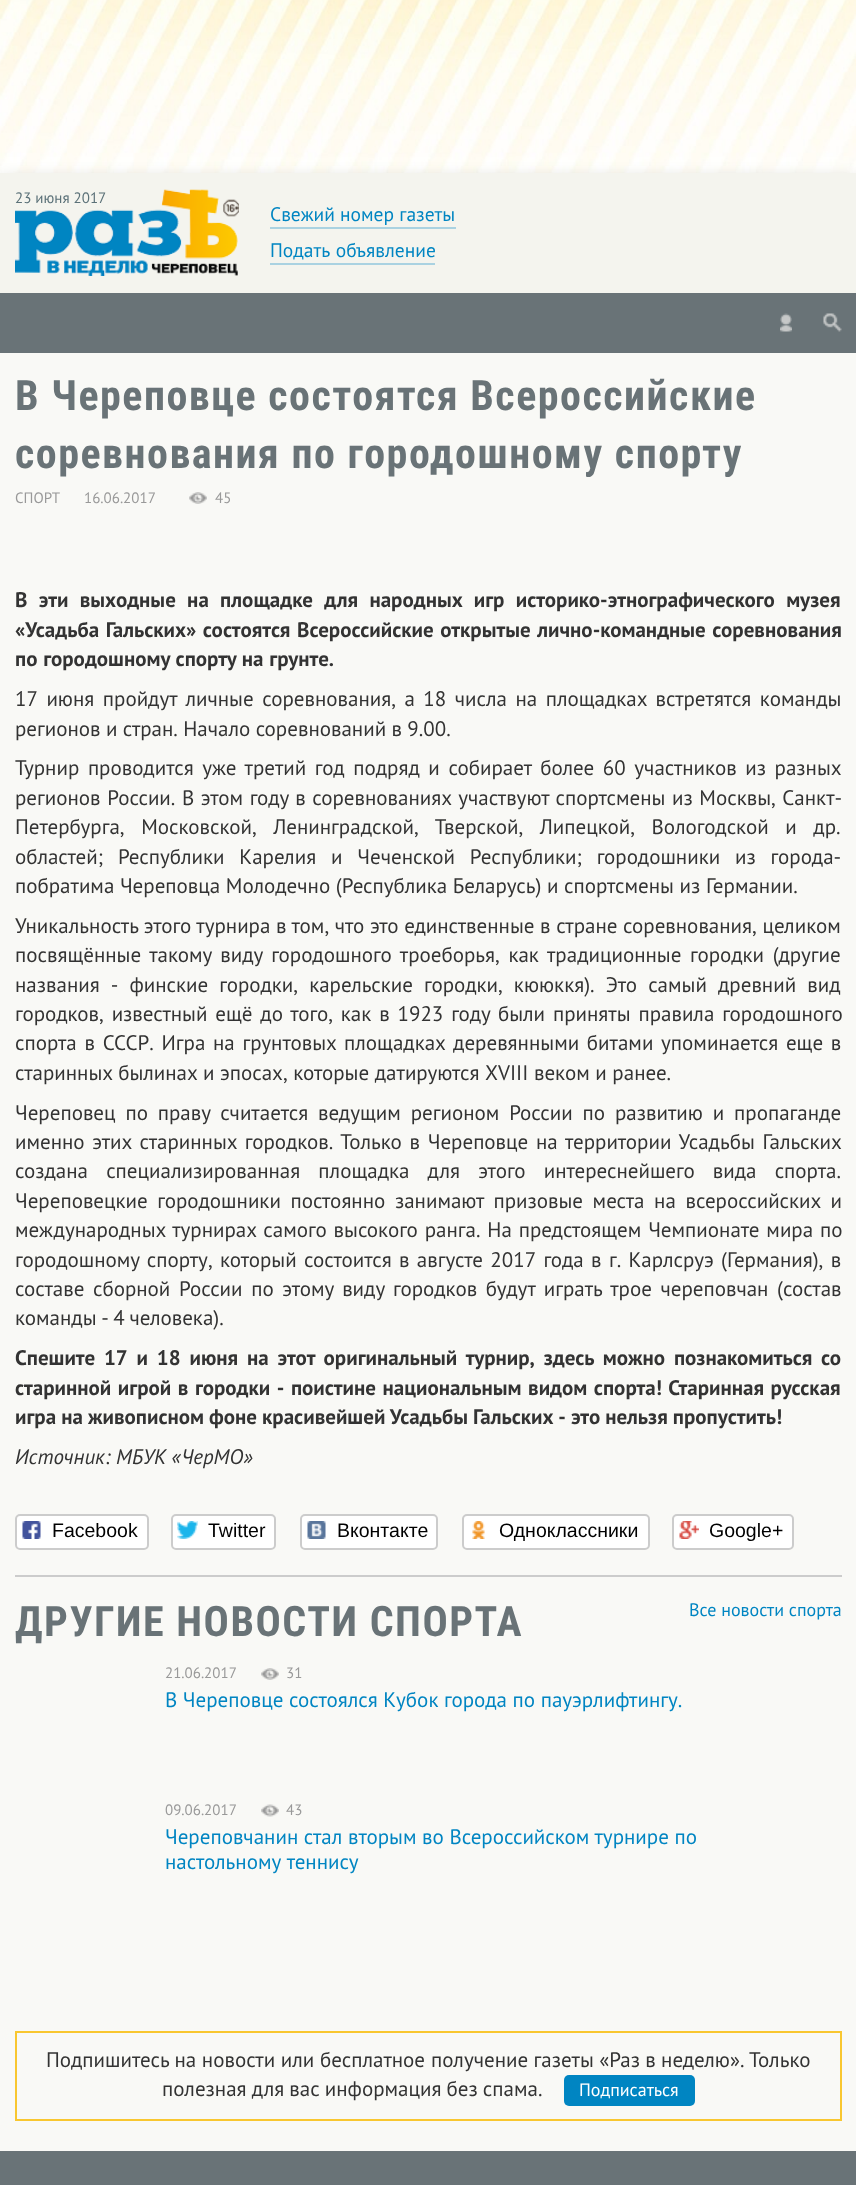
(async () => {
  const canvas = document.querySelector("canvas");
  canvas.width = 856;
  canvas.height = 2185;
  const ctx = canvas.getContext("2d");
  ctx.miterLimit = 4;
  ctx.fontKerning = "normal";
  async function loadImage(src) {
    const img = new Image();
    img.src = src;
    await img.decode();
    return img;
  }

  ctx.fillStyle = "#ffffff";
  ctx.fillRect(0, 0, 856, 2185);
  ctx.drawImage(await loadImage("img/1.png"), 0, 0, 856, 173);
  ctx.fillStyle = "rgba(0, 0, 0, 0.55)";
  ctx.filter = "blur(11px)";
  ctx.beginPath();
  ctx.rect(0, 188, 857, 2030);
  ctx.fill();
  ctx.filter = "none";
  ctx.fillStyle = "#f9f9f6";
  ctx.fillRect(0, 353, 856, 1798);
  ctx.fillStyle = "#f4f4ee";
  ctx.fillRect(0, 173, 856, 120);
  ctx.drawImage(await loadImage("img/2.png"), 15, 189, 224, 87);
  for (const [x, y, w, h, color] of [
    [270, 227, 186, 2, "#aad2e1"],
    [270, 263, 165, 2, "#aad2e1"],
    [0, 293, 856, 60, "#697377"],
  ]) {
    ctx.fillStyle = color;
    ctx.fillRect(x, y, w, h);
  }
  ctx.drawImage(await loadImage("img/3.png"), 780, 313, 12, 19);
  ctx.drawImage(await loadImage("img/4.png"), 823, 313, 19, 19);
  ctx.drawImage(await loadImage("img/5.png"), 189, 492, 18, 12);
  ctx.fillStyle = "#ffffff";
  ctx.beginPath();
  ctx.roundRect(16, 1515, 132, 34, 4);
  ctx.fill();
  ctx.strokeStyle = "#cccccc";
  ctx.lineWidth = 2;
  ctx.stroke();
  ctx.drawImage(await loadImage("img/6.png"), 22, 1521, 19, 18);
  ctx.beginPath();
  ctx.roundRect(172, 1515, 103, 34, 4);
  ctx.fill();
  ctx.stroke();
  ctx.drawImage(await loadImage("img/7.png"), 177, 1521, 21, 18);
  ctx.beginPath();
  ctx.roundRect(301, 1515, 136, 34, 4);
  ctx.fill();
  ctx.stroke();
  ctx.drawImage(await loadImage("img/8.png"), 307, 1521, 19, 18);
  ctx.beginPath();
  ctx.roundRect(463, 1515, 186, 34, 4);
  ctx.fill();
  ctx.stroke();
  ctx.drawImage(await loadImage("img/9.png"), 472, 1521, 13, 18);
  ctx.beginPath();
  ctx.roundRect(673, 1515, 120, 34, 4);
  ctx.fill();
  ctx.stroke();
  ctx.drawImage(await loadImage("img/10.png"), 679, 1521, 20, 18);
  ctx.fillStyle = "#cccccc";
  ctx.fillRect(15, 1575, 827, 2);
  ctx.drawImage(await loadImage("img/11.png"), 261, 1668, 18, 12);
  ctx.drawImage(await loadImage("img/12.png"), 261, 1804, 18, 13);
  ctx.strokeStyle = "#f9c730";
  ctx.strokeRect(16, 2032, 825, 88);
  ctx.fillStyle = "#0085c2";
  ctx.beginPath();
  ctx.roundRect(564, 2075, 131, 31, 5);
  ctx.fill();
  ctx.fillStyle = "#697377";
  ctx.fillRect(0, 2151, 856, 34);
  ctx.font = "15px PT Sans";
  ctx.fillStyle = "#5b7178";
  ctx.fillText("23 июня 2017", 15, 203);
  ctx.font = "19.5px PT Sans";
  ctx.fillStyle = "#0085c2";
  ctx.fillText("Свежий номер газеты", 270, 221);
  ctx.wordSpacing = "1px";
  ctx.fillText("Подать объявление", 270, 257);
  ctx.letterSpacing = "1.5px";
  ctx.wordSpacing = "0px";
  ctx.font = "bold 42px Roboto Condensed";
  ctx.fillStyle = "#697377";
  ctx.fillText("В Череповце состоятся Всероссийские", 15, 410);
  ctx.fillText("соревнования по городошному спорту", 15, 468);
  ctx.letterSpacing = "0px";
  ctx.font = "15px PT Sans";
  ctx.fillStyle = "#999999";
  for (const [text, x, y] of [
    ["СПОРТ", 15, 503],
    ["16.06.2017", 84, 503],
    ["45", 215, 503],
  ]) {
    ctx.fillText(text, x, y);
  }
  ctx.wordSpacing = "6px";
  ctx.font = "bold 21px PT Sans";
  ctx.fillStyle = "#333333";
  ctx.fillText("В эти выходные на площадке для народных игр историко-этнографического музея", 15, 607);
  ctx.wordSpacing = "1.25px";
  ctx.fillText("«Усадьба Гальских» состоятся Всероссийские открытые лично-командные соревнования", 15, 637);
  ctx.wordSpacing = "0.5px";
  ctx.fillText("по городошному спорту на грунте.", 15, 666);
  ctx.wordSpacing = "2.9px";
  ctx.font = "21px PT Sans";
  ctx.fillText("17 июня пройдут личные соревнования, а 18 числа на площадках встретятся команды", 15, 706);
  ctx.wordSpacing = "-0.25px";
  ctx.fillText("регионов и стран. Начало соревнований в 9.00.", 15, 736);
  ctx.wordSpacing = "3px";
  ctx.fillText("Турнир проводится уже третий год подряд и собирает более 60 участников из разных", 15, 775);
  ctx.wordSpacing = "1px";
  ctx.fillText("регионов России. В этом году в соревнованиях участвуют спортсмены из Москвы, Санкт-", 15, 805);
  ctx.wordSpacing = "11px";
  ctx.fillText("Петербурга, Московской, Ленинградской, Тверской, Липецкой, Вологодской и др.", 15, 834);
  ctx.wordSpacing = "9.25px";
  ctx.fillText("областей; Республики Карелия и Чеченской Республики; городошники из города-", 15, 864);
  ctx.wordSpacing = "0px";
  ctx.fillText("побратима Череповца Молодечно (Республика Беларусь) и спортсмены из Германии.", 15, 893);
  ctx.fillText("Уникальность этого турнира в том, что это единственные в стране соревнования, целиком", 15, 933);
  ctx.wordSpacing = "3px";
  ctx.fillText("посвящённые такому виду городошного троеборья, как традиционные городки (другие", 15, 962);
  ctx.wordSpacing = "5.5px";
  ctx.fillText("названия - финские городки, карельские городки, кююккя). Это самый древний вид", 15, 992);
  ctx.wordSpacing = "2.25px";
  ctx.fillText("городков, известный ещё до того, как в 1923 году были приняты правила городошного", 15, 1021);
  ctx.wordSpacing = "2.1px";
  ctx.fillText("спорта в СССР. Игра на грунтовых площадках деревянными битами упоминается еще в", 15, 1050);
  ctx.wordSpacing = "0px";
  ctx.fillText("старинных былинах и эпосах, которые датируются XVIII веком и ранее.", 15, 1080);
  ctx.wordSpacing = "4.25px";
  ctx.fillText("Череповец по праву считается ведущим регионом России по развитию и пропаганде", 15, 1120);
  ctx.wordSpacing = "2.1px";
  ctx.fillText("именно этих старинных городков. Только в Череповце на территории Усадьбы Гальских", 15, 1149);
  ctx.wordSpacing = "12.5px";
  ctx.fillText("создана специализированная площадка для этого интереснейшего вида спорта.", 15, 1178);
  ctx.wordSpacing = "4px";
  ctx.fillText("Череповецкие городошники постоянно занимают призовые места на всероссийских и", 15, 1208);
  ctx.wordSpacing = "1.25px";
  ctx.fillText("международных турнирах самого высокого ранга. На предстоящем Чемпионате мира по", 15, 1237);
  ctx.wordSpacing = "1.75px";
  ctx.fillText("городошному спорту, который состоится в августе 2017 года в г. Карлсруэ (Германия), в", 15, 1267);
  ctx.wordSpacing = "3px";
  ctx.fillText("составе сборной России по этому виду городков будут играть трое череповчан (состав", 15, 1296);
  ctx.wordSpacing = "-1px";
  ctx.fillText("команды - 4 человека).", 15, 1325);
  ctx.wordSpacing = "3.5px";
  ctx.font = "bold 21px PT Sans";
  ctx.fillText("Спешите 17 и 18 июня на этот оригинальный турнир, здесь можно познакомиться со", 15, 1365);
  ctx.wordSpacing = "1.25px";
  ctx.fillText("старинной игрой в городки - поистине национальным видом спорта! Старинная русская", 15, 1395);
  ctx.wordSpacing = "-0.25px";
  ctx.fillText("игра на живописном фоне красивейшей Усадьбы Гальских - это нельзя пропустить!", 15, 1424);
  ctx.wordSpacing = "0px";
  ctx.font = "italic 21px PT Sans";
  ctx.fillText("Источник: МБУК «ЧерМО»", 15, 1464);
  ctx.font = "19.5px Liberation Sans";
  ctx.fillStyle = "#000000";
  for (const [text, x, y] of [
    ["Facebook", 52, 1537],
    ["Twitter", 208, 1537],
    ["Вконтакте", 337, 1537],
    ["Одноклассники", 499, 1537],
    ["Google+", 709, 1537],
  ]) {
    ctx.fillText(text, x, y);
  }
  ctx.letterSpacing = "1.5px";
  ctx.font = "bold 42px Roboto Condensed";
  ctx.fillStyle = "#697377";
  ctx.fillText("ДРУГИЕ НОВОСТИ СПОРТА", 15, 1636);
  ctx.letterSpacing = "0px";
  ctx.font = "18px PT Sans";
  ctx.fillStyle = "#0085c2";
  ctx.fillText("Все новости спорта", 689, 1616);
  ctx.font = "15px PT Sans";
  ctx.fillStyle = "#999999";
  ctx.fillText("21.06.2017", 165, 1678);
  ctx.fillText("31", 286, 1678);
  ctx.font = "21px PT Sans";
  ctx.fillStyle = "#0085c2";
  ctx.fillText("В Череповце состоялся Кубок города по пауэрлифтингу.", 165, 1707);
  ctx.font = "15px PT Sans";
  ctx.fillStyle = "#999999";
  ctx.fillText("09.06.2017", 165, 1815);
  ctx.fillText("43", 286, 1815);
  ctx.font = "21px PT Sans";
  ctx.fillStyle = "#0085c2";
  ctx.fillText("Череповчанин стал вторым во Всероссийском турнире по", 165, 1844);
  ctx.wordSpacing = "1px";
  ctx.fillText("настольному теннису", 165, 1869);
  ctx.wordSpacing = "0px";
  ctx.fillStyle = "#333333";
  ctx.fillText("Подпишитесь на новости или", 46, 2067);
  ctx.fillText("бесплатное", 320, 2067);
  ctx.wordSpacing = "-0.25px";
  ctx.fillText("получение газеты «Раз в неделю».", 431, 2067);
  ctx.wordSpacing = "0px";
  ctx.fillText("Только", 749, 2067);
  ctx.wordSpacing = "-0.5px";
  ctx.fillText("полезная для вас информация без спама.", 162, 2096);
  ctx.wordSpacing = "0px";
  ctx.font = "18px PT Sans";
  ctx.fillStyle = "#ffffff";
  ctx.fillText("Подписаться", 579, 2096);
})();
